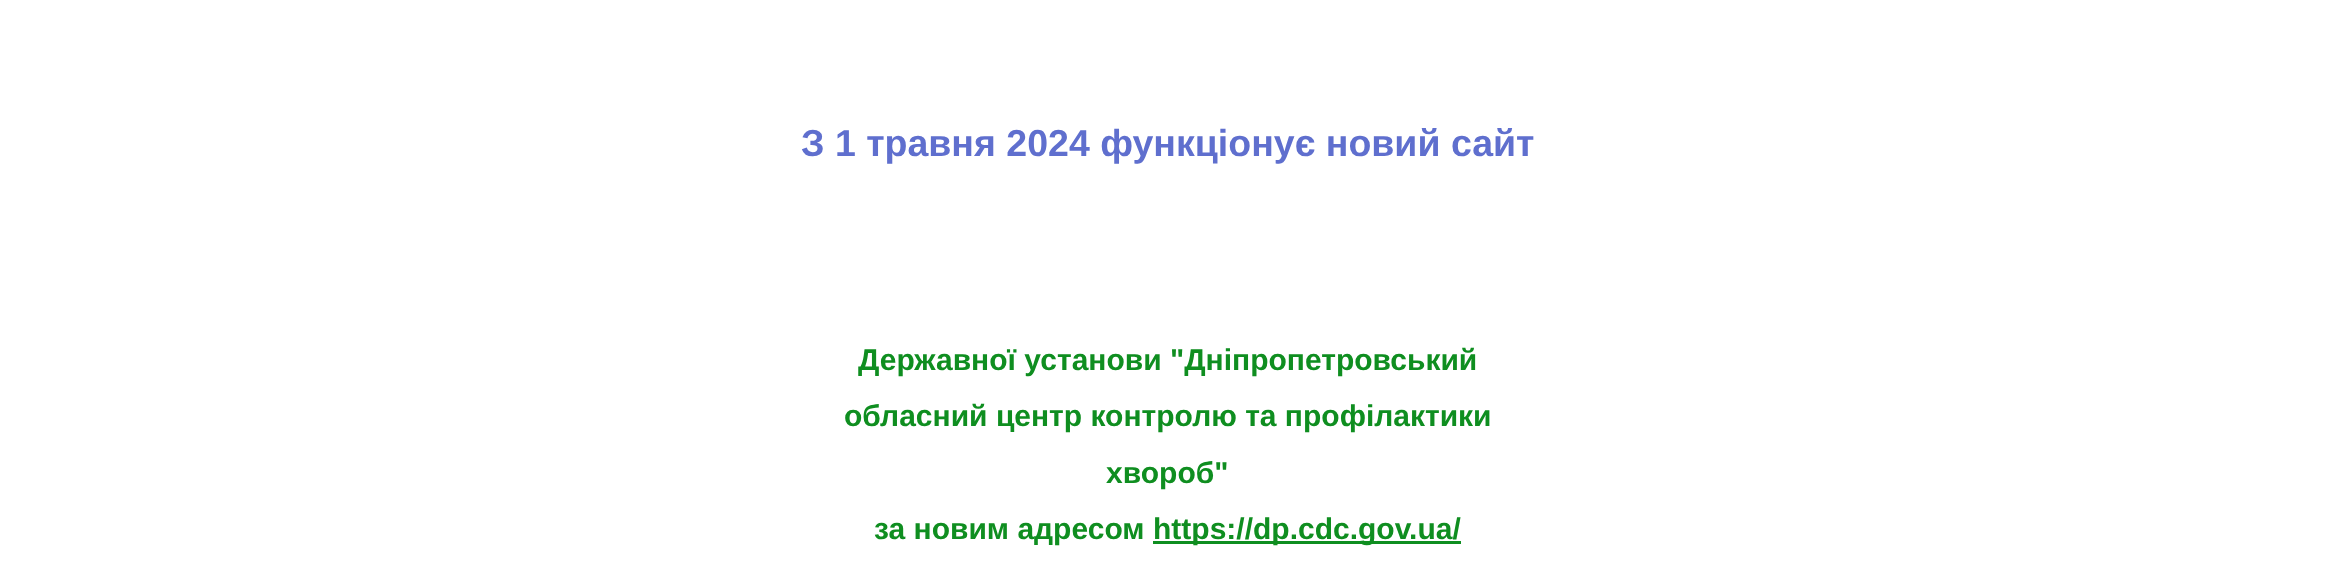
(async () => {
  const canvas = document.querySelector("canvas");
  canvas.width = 2334;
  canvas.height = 576;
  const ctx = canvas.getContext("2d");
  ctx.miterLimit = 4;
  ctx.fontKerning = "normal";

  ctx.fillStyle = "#ffffff";
  ctx.fillRect(0, 0, 2334, 576);
  ctx.fillStyle = "#0f8e20";
  ctx.fillRect(1153, 541, 308, 3);
  ctx.font = "bold 37.5px Liberation Sans";
  ctx.fillStyle = "#5f6fce";
  ctx.fillText("З 1 травня 2024 функціонує новий сайт", 801, 156);
  ctx.font = "bold 30px Liberation Sans";
  ctx.fillStyle = "#0f8e20";
  for (const [text, x, y] of [
    ["Державної установи \"Дніпропетровський", 858, 370],
    ["обласний центр контролю та профілактики", 844, 426],
    ["хвороб\"", 1106, 483],
    ["за новим адресом", 874, 539],
    ["https://dp.cdc.gov.ua/", 1153, 539],
  ]) {
    ctx.fillText(text, x, y);
  }
})();
